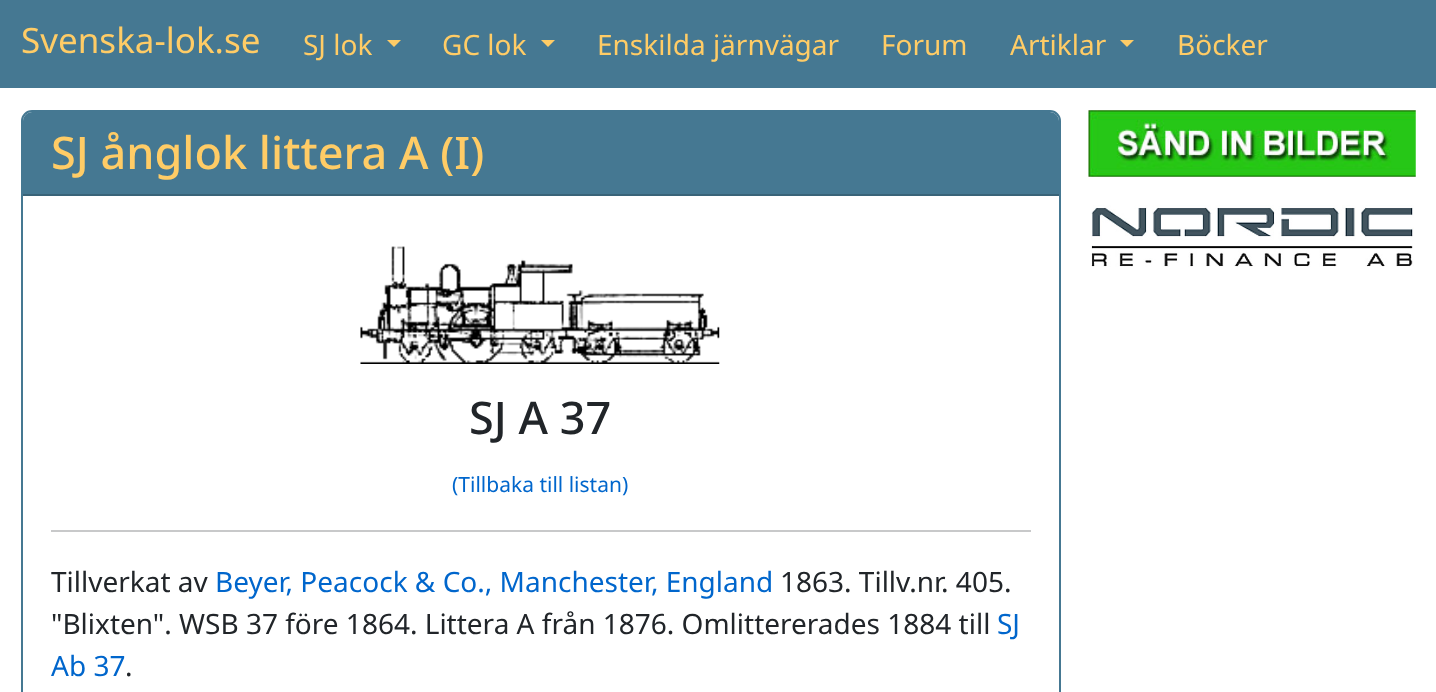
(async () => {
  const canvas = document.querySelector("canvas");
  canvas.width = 1436;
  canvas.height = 692;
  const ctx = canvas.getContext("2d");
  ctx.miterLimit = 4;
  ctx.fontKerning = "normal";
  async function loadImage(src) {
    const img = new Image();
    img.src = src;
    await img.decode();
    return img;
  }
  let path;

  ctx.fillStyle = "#ffffff";
  ctx.fillRect(0, 0, 1436, 692);
  ctx.fillStyle = "#457892";
  ctx.fillRect(0, 0, 1436, 88);
  ctx.fillStyle = "#ffcc66";
  path = new Path2D("M387 40H401L394 47Z");
  ctx.fill(path);
  path = new Path2D("M541 40H555L548 47Z");
  ctx.fill(path);
  path = new Path2D("M1120 40H1134L1127 47Z");
  ctx.fill(path);
  ctx.beginPath();
  ctx.roundRect(22, 111, 1038, 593, 10);
  ctx.strokeStyle = "#457892";
  ctx.lineWidth = 2;
  ctx.stroke();
  ctx.fillStyle = "#457892";
  ctx.beginPath();
  ctx.roundRect(23, 112, 1036, 84, [9, 9, 0, 0]);
  ctx.fill();
  ctx.fillStyle = "#396378";
  ctx.fillRect(23, 194, 1036, 2);
  ctx.drawImage(await loadImage("img/1.png"), 360, 246, 360, 118);
  ctx.fillStyle = "#c8c9ca";
  ctx.fillRect(51, 530, 980, 2);
  ctx.drawImage(await loadImage("img/2.png"), 1088, 110, 328, 67);
  ctx.drawImage(await loadImage("img/3.png"), 1091, 205, 323, 62);
  ctx.font = "35px Noto Sans";
  ctx.fillStyle = "#ffcc66";
  ctx.fillText("Svenska-lok.se", 21, 53);
  ctx.font = "28px Noto Sans";
  for (const [text, x, y] of [
    ["SJ lok", 303, 55],
    ["GC lok", 442, 55],
    ["Enskilda järnvägar", 597, 55],
    ["Forum", 881, 55],
    ["Artiklar", 1010, 55],
    ["Böcker", 1177, 55],
  ]) {
    ctx.fillText(text, x, y);
  }
  ctx.font = "500 45px Noto Sans";
  ctx.fillText("SJ ånglok littera A (I)", 51, 169);
  ctx.fillStyle = "#212529";
  ctx.fillText("SJ A 37", 469, 434);
  ctx.font = "21px Noto Sans";
  ctx.fillStyle = "#0066cc";
  ctx.fillText("(Tillbaka till listan)", 452, 492);
  ctx.font = "28px Noto Sans";
  ctx.fillStyle = "#212529";
  ctx.fillText("Tillverkat av", 51, 592);
  ctx.fillStyle = "#0066cc";
  ctx.fillText("Beyer, Peacock & Co., Manchester, England", 215, 592);
  ctx.fillStyle = "#212529";
  ctx.fillText("1863. Tillv.nr. 405.", 780, 592);
  ctx.fillText("\"Blixten\". WSB 37 före 1864. Littera A från 1876. Omlittererades 1884 till", 51, 634);
  ctx.fillStyle = "#0066cc";
  ctx.fillText("SJ", 997, 634);
  ctx.fillText("Ab 37", 51, 676);
  ctx.fillStyle = "#212529";
  ctx.fillText(".", 125, 676);
})();
